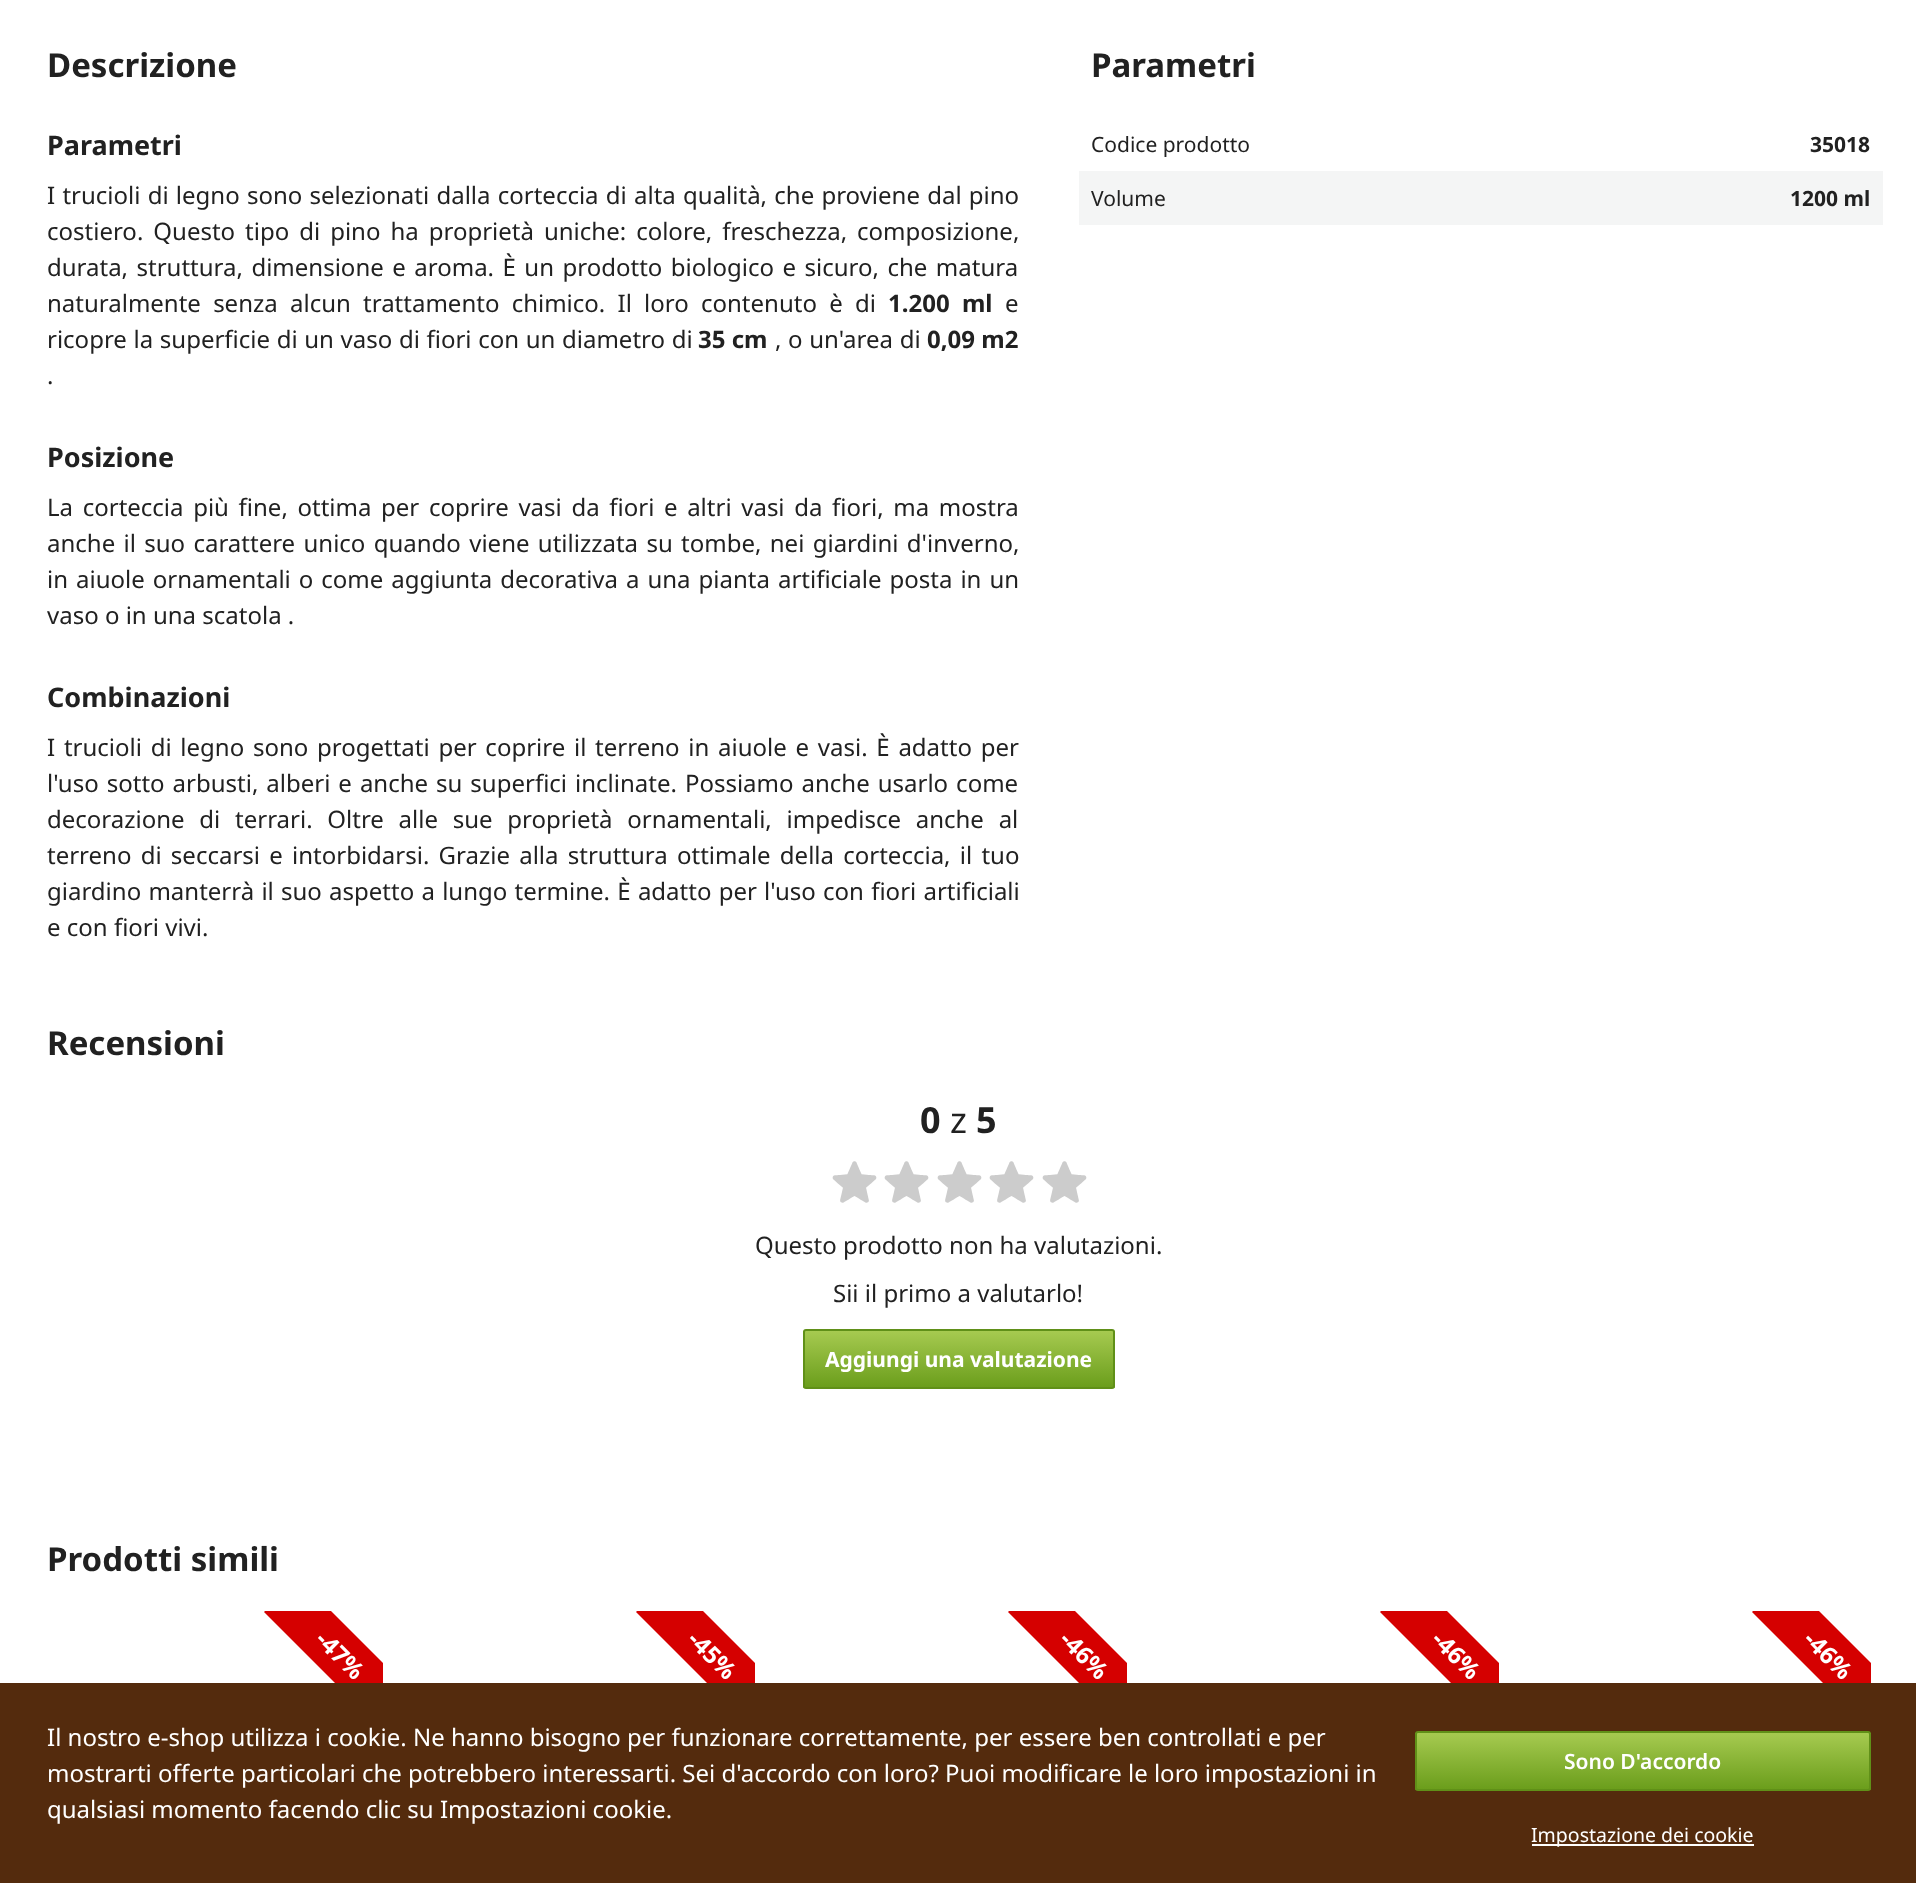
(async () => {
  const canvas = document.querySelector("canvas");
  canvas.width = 1916;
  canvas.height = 1883;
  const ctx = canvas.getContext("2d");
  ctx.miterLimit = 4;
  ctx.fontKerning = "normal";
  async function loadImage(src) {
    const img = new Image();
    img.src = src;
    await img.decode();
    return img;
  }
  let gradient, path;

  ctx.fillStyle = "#ffffff";
  ctx.fillRect(0, 0, 1916, 1883);
  ctx.fillStyle = "#f4f5f5";
  ctx.fillRect(1079, 171, 804, 54);
  ctx.drawImage(await loadImage("img/1.png"), 832, 1161, 255, 42);
  ctx.save();
  ctx.beginPath();
  ctx.roundRect(803, 1329, 312, 60, 3);
  ctx.clip();
  gradient = ctx.createLinearGradient(959, 1388, 959, 1331);
  gradient.addColorStop(0, "#6a9d1b");
  gradient.addColorStop(1, "#a6ca50");
  ctx.fillStyle = gradient;
  ctx.fillRect(803, 1331, 312, 57);
  ctx.restore();
  ctx.beginPath();
  ctx.roundRect(804, 1330, 310, 58, 2);
  ctx.strokeStyle = "#609018";
  ctx.lineWidth = 2;
  ctx.stroke();
  ctx.save();
  ctx.beginPath();
  ctx.rect(47, 1611, 336, 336);
  ctx.clip();
  ctx.fillStyle = "#d50000";
  path = new Path2D("M298 1578L417 1697L383 1731L264 1612Z");
  ctx.fill(path);
  ctx.restore();
  ctx.save();
  ctx.beginPath();
  ctx.rect(419, 1611, 336, 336);
  ctx.clip();
  ctx.fillStyle = "#d50000";
  path = new Path2D("M670 1578L789 1697L755 1731L636 1612Z");
  ctx.fill(path);
  ctx.restore();
  ctx.save();
  ctx.beginPath();
  ctx.rect(791, 1611, 336, 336);
  ctx.clip();
  ctx.fillStyle = "#d50000";
  path = new Path2D("M1042 1578L1161 1697L1127 1731L1008 1612Z");
  ctx.fill(path);
  ctx.restore();
  ctx.save();
  ctx.beginPath();
  ctx.rect(1163, 1611, 336, 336);
  ctx.clip();
  ctx.fillStyle = "#d50000";
  path = new Path2D("M1414 1578L1533 1697L1499 1731L1380 1612Z");
  ctx.fill(path);
  ctx.restore();
  ctx.save();
  ctx.beginPath();
  ctx.rect(1535, 1611, 336, 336);
  ctx.clip();
  ctx.fillStyle = "#d50000";
  path = new Path2D("M1786 1578L1905 1697L1871 1731L1752 1612Z");
  ctx.fill(path);
  ctx.restore();
  ctx.fillStyle = "#542b0d";
  ctx.fillRect(0, 1683, 1916, 200);
  ctx.save();
  ctx.beginPath();
  ctx.roundRect(1415, 1731, 456, 60, 3);
  ctx.clip();
  gradient = ctx.createLinearGradient(1643, 1790, 1643, 1733);
  gradient.addColorStop(0, "#6a9d1b");
  gradient.addColorStop(1, "#a6ca50");
  ctx.fillStyle = gradient;
  ctx.fillRect(1415, 1733, 456, 57);
  ctx.restore();
  ctx.beginPath();
  ctx.roundRect(1416, 1732, 454, 58, 2);
  ctx.stroke();
  ctx.fillStyle = "#ffffff";
  ctx.fillRect(1532, 1844, 222, 2);
  ctx.font = "bold 33px Noto Sans";
  ctx.fillStyle = "#212121";
  ctx.fillText("Descrizione", 47, 77);
  ctx.font = "bold 27px Noto Sans";
  ctx.fillText("Parametri", 47, 155);
  ctx.wordSpacing = "1px";
  ctx.font = "24px Noto Sans";
  ctx.fillText("I trucioli di legno sono selezionati dalla corteccia di alta qualità, che proviene dal pino", 47, 204);
  ctx.wordSpacing = "3.75px";
  ctx.fillText("costiero. Questo tipo di pino ha proprietà uniche: colore, freschezza, composizione,", 47, 240);
  ctx.wordSpacing = "2.25px";
  ctx.fillText("durata, struttura, dimensione e aroma. È un prodotto biologico e sicuro, che matura", 47, 276);
  ctx.wordSpacing = "6px";
  ctx.fillText("naturalmente senza alcun trattamento chimico. Il loro contenuto è di", 47, 312);
  ctx.font = "bold 24px Noto Sans";
  ctx.fillText("1.200 ml", 888, 312);
  ctx.wordSpacing = "0px";
  ctx.font = "24px Noto Sans";
  ctx.fillText("e", 1005, 312);
  ctx.wordSpacing = "0.4px";
  ctx.fillText("ricopre la superficie di un vaso di fiori con un diametro di", 47, 348);
  ctx.wordSpacing = "0px";
  ctx.font = "bold 24px Noto Sans";
  ctx.fillText("35 cm", 698, 348);
  ctx.wordSpacing = "0.4px";
  ctx.font = "24px Noto Sans";
  ctx.fillText(", o un'area di", 775, 348);
  ctx.wordSpacing = "0px";
  ctx.font = "bold 24px Noto Sans";
  ctx.fillText("0,09 m2", 927, 348);
  ctx.font = "24px Noto Sans";
  ctx.fillText(".", 47, 384);
  ctx.font = "bold 27px Noto Sans";
  ctx.fillText("Posizione", 47, 467);
  ctx.wordSpacing = "3.4px";
  ctx.font = "24px Noto Sans";
  ctx.fillText("La corteccia più fine, ottima per coprire vasi da fiori e altri vasi da fiori, ma mostra", 47, 516);
  ctx.wordSpacing = "2.1px";
  ctx.fillText("anche il suo carattere unico quando viene utilizzata su tombe, nei giardini d'inverno,", 47, 552);
  ctx.wordSpacing = "1.75px";
  ctx.fillText("in aiuole ornamentali o come aggiunta decorativa a una pianta artificiale posta in un", 47, 588);
  ctx.wordSpacing = "0px";
  ctx.fillText("vaso o in una scatola .", 47, 624);
  ctx.font = "bold 27px Noto Sans";
  ctx.fillText("Combinazioni", 47, 707);
  ctx.wordSpacing = "2.5px";
  ctx.font = "24px Noto Sans";
  ctx.fillText("I trucioli di legno sono progettati per coprire il terreno in aiuole e vasi. È adatto per", 47, 756);
  ctx.wordSpacing = "1.75px";
  ctx.fillText("l'uso sotto arbusti, alberi e anche su superfici inclinate. Possiamo anche usarlo come", 47, 792);
  ctx.wordSpacing = "8.5px";
  ctx.fillText("decorazione di terrari. Oltre alle sue proprietà ornamentali, impedisce anche al", 47, 828);
  ctx.wordSpacing = "3px";
  ctx.fillText("terreno di seccarsi e intorbidarsi. Grazie alla struttura ottimale della corteccia, il tuo", 47, 864);
  ctx.wordSpacing = "1px";
  ctx.fillText("giardino manterrà il suo aspetto a lungo termine. È adatto per l'uso con fiori artificiali", 47, 900);
  ctx.wordSpacing = "0px";
  ctx.fillText("e con fiori vivi.", 47, 936);
  ctx.font = "bold 33px Noto Sans";
  ctx.fillText("Parametri", 1091, 77);
  ctx.font = "21px Noto Sans";
  ctx.fillText("Codice prodotto", 1091, 152);
  ctx.font = "bold 21px Noto Sans";
  ctx.fillText("35018", 1810, 152);
  ctx.font = "21px Noto Sans";
  ctx.fillText("Volume", 1091, 206);
  ctx.font = "bold 21px Noto Sans";
  ctx.fillText("1200 ml", 1790, 206);
  ctx.font = "bold 33px Noto Sans";
  ctx.fillText("Recensioni", 47, 1055);
  ctx.font = "bold 36px Noto Sans";
  ctx.fillText("0", 920, 1133);
  ctx.font = "36px Noto Sans";
  ctx.fillText("z", 950, 1133);
  ctx.font = "bold 36px Noto Sans";
  ctx.fillText("5", 976, 1133);
  ctx.font = "24px Noto Sans";
  ctx.fillText("Questo prodotto non ha valutazioni.", 755, 1254);
  ctx.fillText("Sii il primo a valutarlo!", 833, 1302);
  ctx.font = "bold 21px Noto Sans";
  ctx.fillStyle = "#ffffff";
  ctx.fillText("Aggiungi una valutazione", 825, 1367);
  ctx.font = "bold 33px Noto Sans";
  ctx.fillStyle = "#212121";
  ctx.fillText("Prodotti simili", 47, 1571);
  ctx.font = "bold 24px Noto Sans";
  ctx.fillStyle = "#ffffff";
  ctx.save();
  ctx.translate(314, 1641);
  ctx.rotate(45 * Math.PI / 180);
  ctx.fillText("-47%", 0, 0);
  ctx.restore();
  ctx.save();
  ctx.translate(686, 1641);
  ctx.rotate(45 * Math.PI / 180);
  ctx.fillText("-45%", 0, 0);
  ctx.restore();
  ctx.save();
  ctx.translate(1058, 1641);
  ctx.rotate(45 * Math.PI / 180);
  ctx.fillText("-46%", 0, 0);
  ctx.restore();
  ctx.save();
  ctx.translate(1430, 1641);
  ctx.rotate(45 * Math.PI / 180);
  ctx.fillText("-46%", 0, 0);
  ctx.restore();
  ctx.save();
  ctx.translate(1802, 1641);
  ctx.rotate(45 * Math.PI / 180);
  ctx.fillText("-46%", 0, 0);
  ctx.restore();
  ctx.font = "24px Noto Sans";
  for (const [text, x, y] of [
    ["Il nostro e-shop utilizza i cookie. Ne hanno bisogno per funzionare correttamente, per essere ben controllati e per", 47, 1746],
    ["mostrarti offerte particolari che potrebbero interessarti. Sei d'accordo con loro? Puoi modificare le loro impostazioni in", 47, 1782],
    ["qualsiasi momento facendo clic su Impostazioni cookie.", 47, 1818],
  ]) {
    ctx.fillText(text, x, y);
  }
  ctx.font = "600 21px Noto Sans";
  ctx.fillText("Sono D'accordo", 1564, 1769);
  ctx.font = "19.5px Noto Sans";
  ctx.fillText("Impostazione dei cookie", 1531, 1842);
})();
